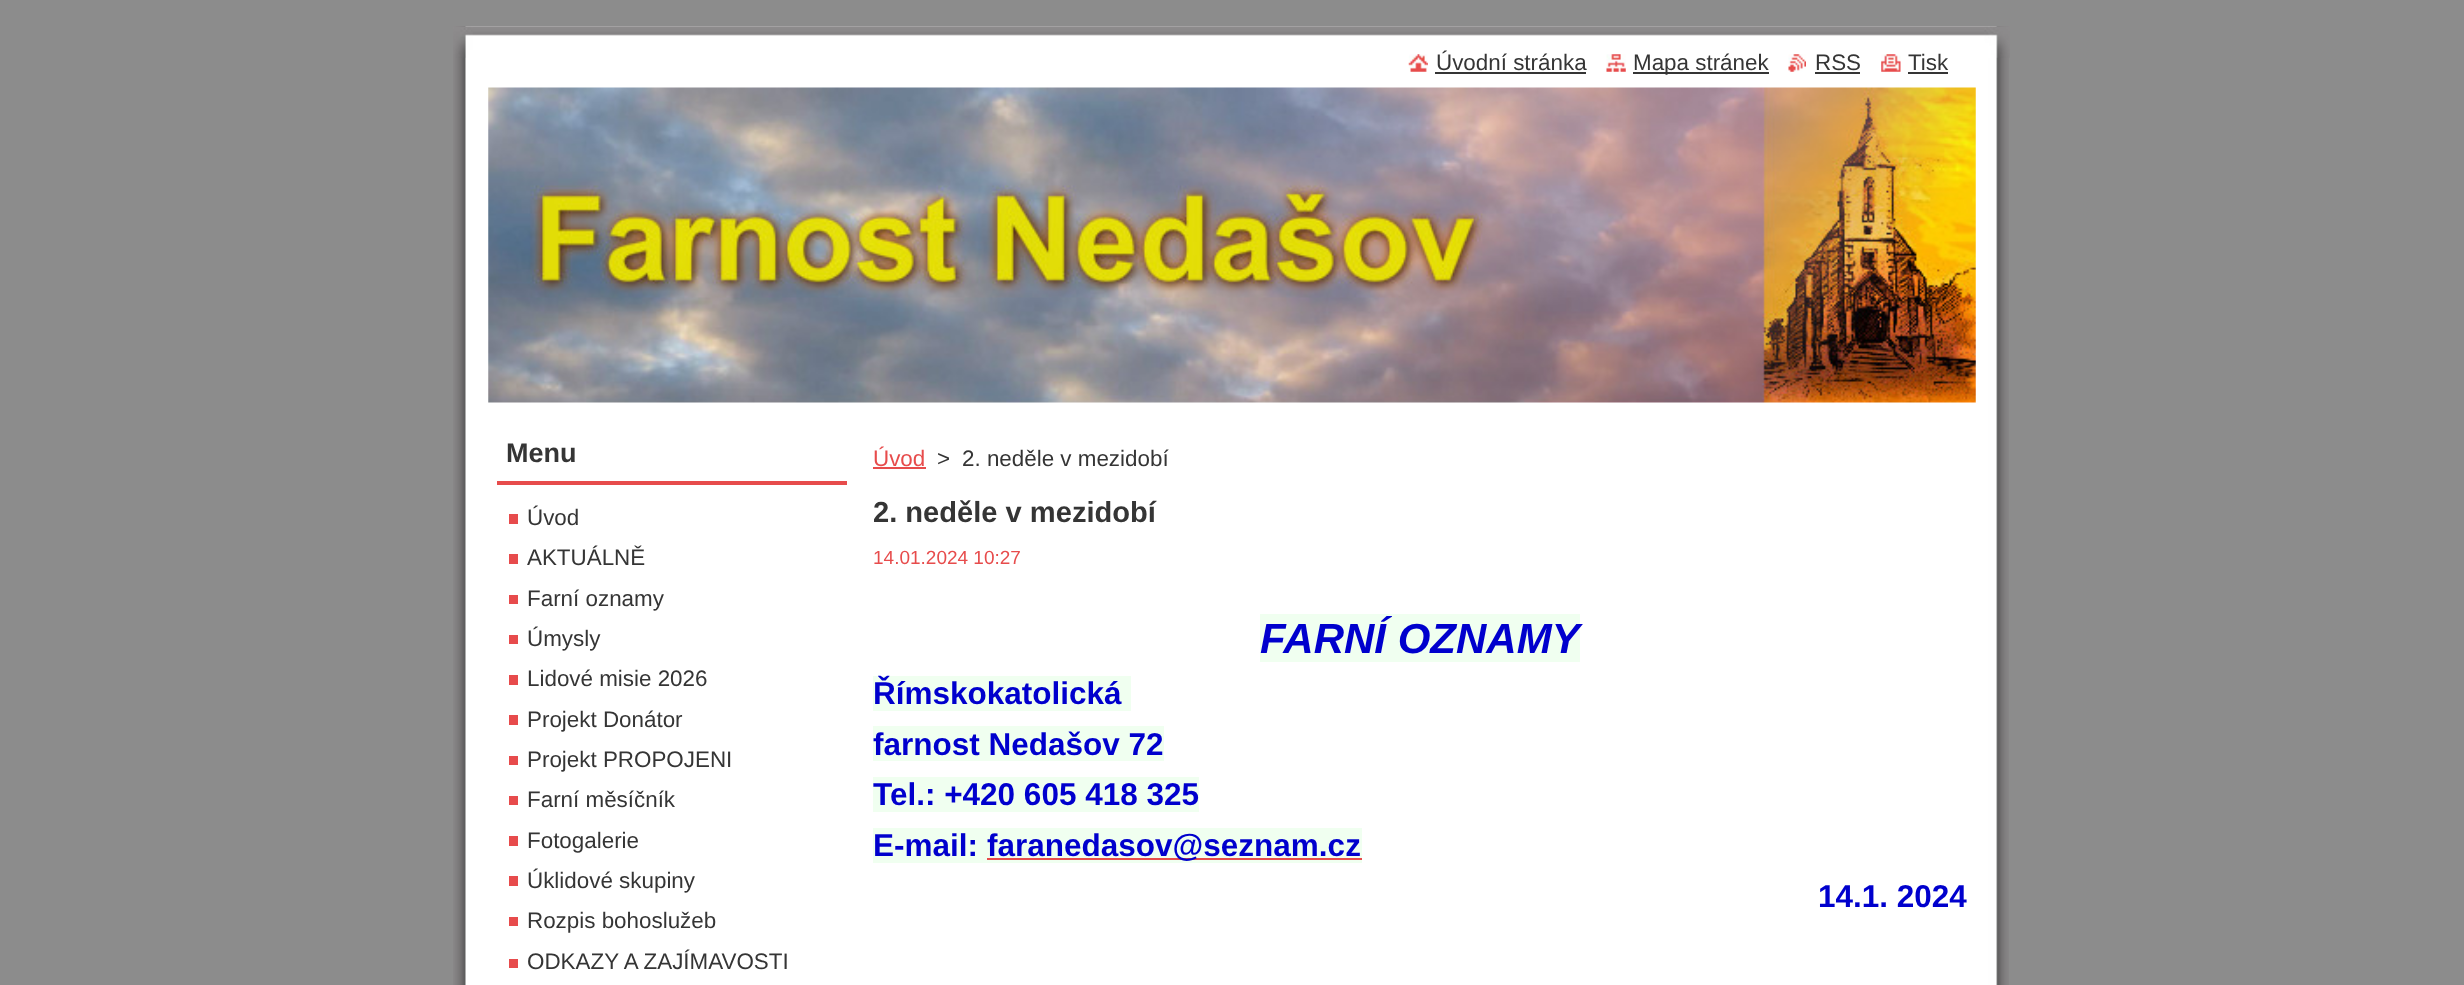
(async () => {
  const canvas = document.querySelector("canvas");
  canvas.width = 2464;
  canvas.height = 985;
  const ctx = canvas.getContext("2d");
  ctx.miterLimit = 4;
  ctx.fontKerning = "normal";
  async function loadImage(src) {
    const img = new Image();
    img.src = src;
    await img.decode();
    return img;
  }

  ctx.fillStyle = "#8c8c8c";
  ctx.fillRect(0, 0, 2464, 985);
  ctx.drawImage(await loadImage("img/1.png"), 453, 26, 1556, 945);
  ctx.drawImage(await loadImage("img/2.png"), 453, 26, 1557, 32);
  ctx.drawImage(await loadImage("img/3.png"), 453, 971, 1556, 14);
  ctx.drawImage(await loadImage("img/4.png"), 1408, 54, 20, 18);
  ctx.fillStyle = "#353535";
  ctx.fillRect(1435, 72, 151, 2);
  ctx.drawImage(await loadImage("img/5.png"), 1606, 54, 20, 18);
  ctx.fillRect(1633, 72, 136, 2);
  ctx.drawImage(await loadImage("img/6.png"), 1788, 54, 18, 18);
  ctx.fillRect(1815, 72, 45, 2);
  ctx.drawImage(await loadImage("img/7.png"), 1881, 54, 20, 18);
  ctx.fillRect(1908, 72, 40, 2);
  ctx.drawImage(await loadImage("img/8.png"), 488, 87, 1488, 316);
  for (const [x, y, w, h, color] of [
    [497, 481, 350, 4, "#e74c4c"],
    [509, 514, 9, 10, "#e74b4c"],
    [509, 554, 9, 10, "#e74b4c"],
    [509, 595, 9, 9, "#e74b4c"],
    [509, 635, 9, 9, "#e74b4c"],
    [509, 675, 9, 10, "#e74b4c"],
    [509, 715, 9, 10, "#e74b4c"],
    [509, 756, 9, 9, "#e74b4c"],
    [509, 796, 9, 9, "#e74b4c"],
    [509, 836, 9, 10, "#e74b4c"],
    [509, 876, 9, 10, "#e74b4c"],
    [509, 917, 9, 9, "#e74b4c"],
    [509, 959, 9, 9, "#e74b4c"],
    [873, 467, 53, 2, "#e74c4c"],
    [1260, 614, 320, 48, "#f0fff0"],
    [873, 676, 258, 35, "#f0fff0"],
    [873, 726, 291, 35, "#f0fff0"],
    [873, 777, 326, 35, "#f0fff0"],
    [873, 828, 489, 35, "#f0fff0"],
    [987, 858, 375, 2, "#e74c4c"],
  ]) {
    ctx.fillStyle = color;
    ctx.fillRect(x, y, w, h);
  }
  ctx.font = "22.4px Liberation Sans";
  ctx.fillStyle = "#353535";
  for (const [text, x, y] of [
    ["Úvodní stránka", 1436, 70],
    ["Mapa stránek", 1633, 70],
    ["RSS", 1815, 70],
    ["Tisk", 1908, 70],
  ]) {
    ctx.fillText(text, x, y);
  }
  ctx.font = "bold 27px Liberation Sans";
  ctx.fillText("Menu", 506, 462);
  ctx.font = "22.4px Liberation Sans";
  for (const [text, x, y] of [
    ["Úvod", 527, 525],
    ["AKTUÁLNĚ", 527, 565],
    ["Farní oznamy", 527, 606],
    ["Úmysly", 527, 646],
    ["Lidové misie 2026", 527, 686],
    ["Projekt Donátor", 527, 727],
    ["Projekt PROPOJENI", 527, 767],
    ["Farní měsíčník", 527, 807],
    ["Fotogalerie", 527, 848],
    ["Úklidové skupiny", 527, 888],
    ["Rozpis bohoslužeb", 527, 928],
    ["ODKAZY A ZAJÍMAVOSTI", 527, 969],
  ]) {
    ctx.fillText(text, x, y);
  }
  ctx.fillStyle = "#e74c4c";
  ctx.fillText("Úvod", 873, 466);
  ctx.fillStyle = "#353535";
  ctx.fillText(">", 937, 466);
  ctx.fillText("2. neděle v mezidobí", 962, 466);
  ctx.font = "bold 29.1px Liberation Sans";
  ctx.fillText("2. neděle v mezidobí", 873, 522);
  ctx.font = "19px Liberation Sans";
  ctx.fillStyle = "#e74c4c";
  ctx.fillText("14.01.2024 10:27", 873, 564);
  ctx.font = "italic bold 42px Liberation Sans";
  ctx.fillStyle = "#0000cd";
  ctx.fillText("FARNÍ OZNAMY", 1260, 653);
  ctx.font = "bold 31.5px Liberation Sans";
  for (const [text, x, y] of [
    ["Římskokatolická", 873, 704],
    ["farnost Nedašov 72", 873, 755],
    ["Tel.: +420 605 418 325", 873, 805],
    ["E-mail:", 873, 856],
    ["faranedasov@seznam.cz", 987, 856],
    ["14.1. 2024", 1818, 907],
  ]) {
    ctx.fillText(text, x, y);
  }
})();
